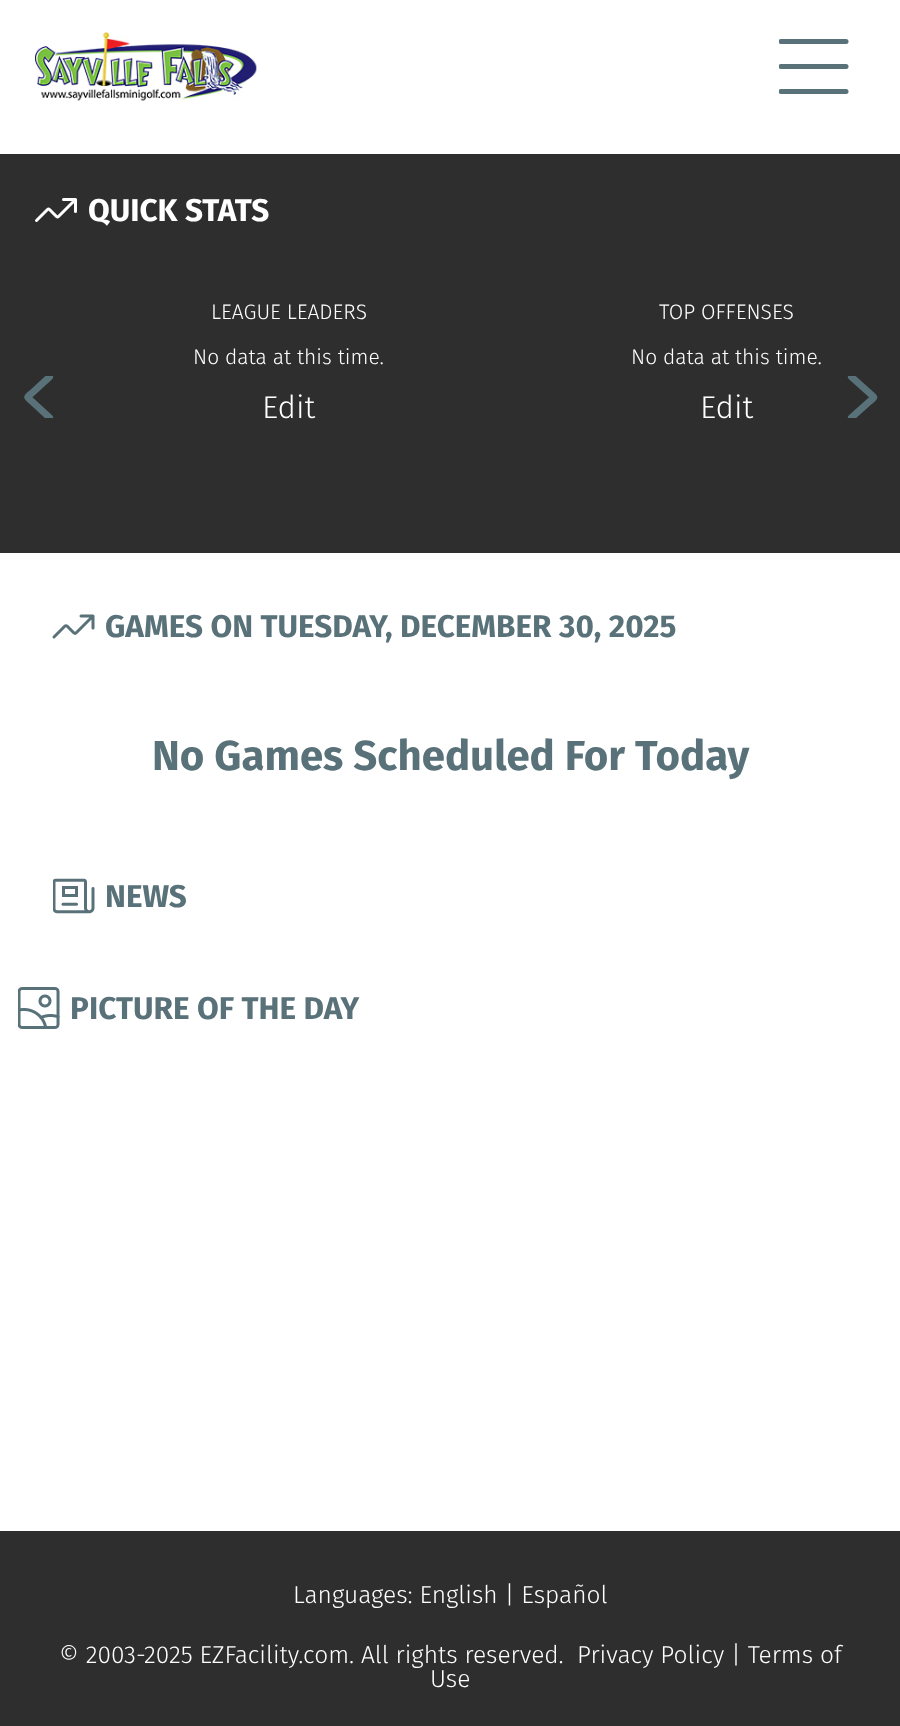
(async () => {
  const canvas = document.querySelector("canvas");
  canvas.width = 900;
  canvas.height = 1726;
  const ctx = canvas.getContext("2d");
  ctx.miterLimit = 4;
  ctx.fontKerning = "normal";
  async function loadImage(src) {
    const img = new Image();
    img.src = src;
    await img.decode();
    return img;
  }
  let path;

  ctx.fillStyle = "#ffffff";
  ctx.fillRect(0, 0, 900, 1726);
  ctx.drawImage(await loadImage("img/1.png"), 35, 32, 222, 69);
  ctx.save();
  ctx.beginPath();
  ctx.rect(779, 32, 70, 70);
  ctx.clip();
  path = new Path2D("M846 41.5H781");
  ctx.strokeStyle = "#597179";
  ctx.lineWidth = 5;
  ctx.lineCap = "round";
  ctx.lineJoin = "round";
  ctx.stroke(path);
  path = new Path2D("M846 66.5H781");
  ctx.stroke(path);
  path = new Path2D("M846 91.5H781");
  ctx.stroke(path);
  ctx.restore();
  ctx.fillStyle = "#2e2e2e";
  ctx.fillRect(0, 154, 900, 399);
  path = new Path2D("M63.5 199.5H75.5V211.5M75.5 199.5L58.5 216.5C58 217 57 217 56.5 216.5L49.5 209.5C49 209 48 209 47.5 209.5L36.5 220.5");
  ctx.strokeStyle = "#ffffff";
  ctx.lineWidth = 3;
  ctx.lineCap = "round";
  ctx.lineJoin = "round";
  ctx.stroke(path);
  ctx.save();
  ctx.beginPath();
  ctx.rect(18, 376, 42, 42);
  ctx.clip();
  path = new Path2D("M49.5 377L31.5 393.5C26 398 26.5 396.5 31.5 401L49.5 417.5");
  ctx.strokeStyle = "#597179";
  ctx.lineWidth = 7;
  ctx.stroke(path);
  ctx.restore();
  ctx.save();
  ctx.beginPath();
  ctx.rect(842, 376, 42, 42);
  ctx.clip();
  path = new Path2D("M851.5 417.5L870 401C875.5 396.5 875 398 870 393.5L851.5 377");
  ctx.strokeStyle = "#597179";
  ctx.lineWidth = 7;
  ctx.stroke(path);
  ctx.restore();
  path = new Path2D("M81 616H93V628M93 616L76 633C75.5 633.5 74.5 633.5 74 633L67 626C66.5 625.5 65.5 625.5 65 626L54 637");
  ctx.strokeStyle = "#597179";
  ctx.stroke(path);
  ctx.drawImage(await loadImage("img/2.png"), 53, 878, 42, 36);
  ctx.drawImage(await loadImage("img/3.png"), 18, 987, 42, 42);
  ctx.fillRect(0, 1531, 900, 195);
  ctx.font = "bold 31.5px Fira Sans";
  ctx.fillStyle = "#ffffff";
  ctx.fillText("QUICK STATS", 88, 221);
  ctx.font = "300 21px Fira Sans";
  ctx.fillText("LEAGUE LEADERS", 211, 319);
  ctx.fillText("No data at this time.", 193, 364);
  ctx.font = "300 31.5px Fira Sans";
  ctx.fillText("Edit", 262, 418);
  ctx.font = "300 21px Fira Sans";
  ctx.fillText("TOP OFFENSES", 659, 319);
  ctx.fillText("No data at this time.", 631, 364);
  ctx.font = "300 31.5px Fira Sans";
  ctx.fillText("Edit", 700, 418);
  ctx.font = "bold 31.5px Fira Sans";
  ctx.fillStyle = "#597179";
  ctx.fillText("GAMES ON TUESDAY, DECEMBER 30, 2025", 105, 637);
  ctx.font = "bold 42px Fira Sans";
  ctx.fillText("No Games Scheduled For Today", 152, 770);
  ctx.font = "bold 31.5px Fira Sans";
  ctx.fillText("NEWS", 105, 907);
  ctx.fillText("PICTURE OF THE DAY", 70, 1019);
  ctx.font = "300 24.5px Fira Sans";
  ctx.fillStyle = "#ffffff";
  for (const [text, x, y] of [
    ["Languages: English | Español", 293, 1603],
    ["© 2003-2025 EZFacility.com. All rights reserved.", 59, 1663],
    ["Privacy Policy | Terms of", 577, 1663],
    ["Use", 430, 1687],
  ]) {
    ctx.fillText(text, x, y);
  }
})();
